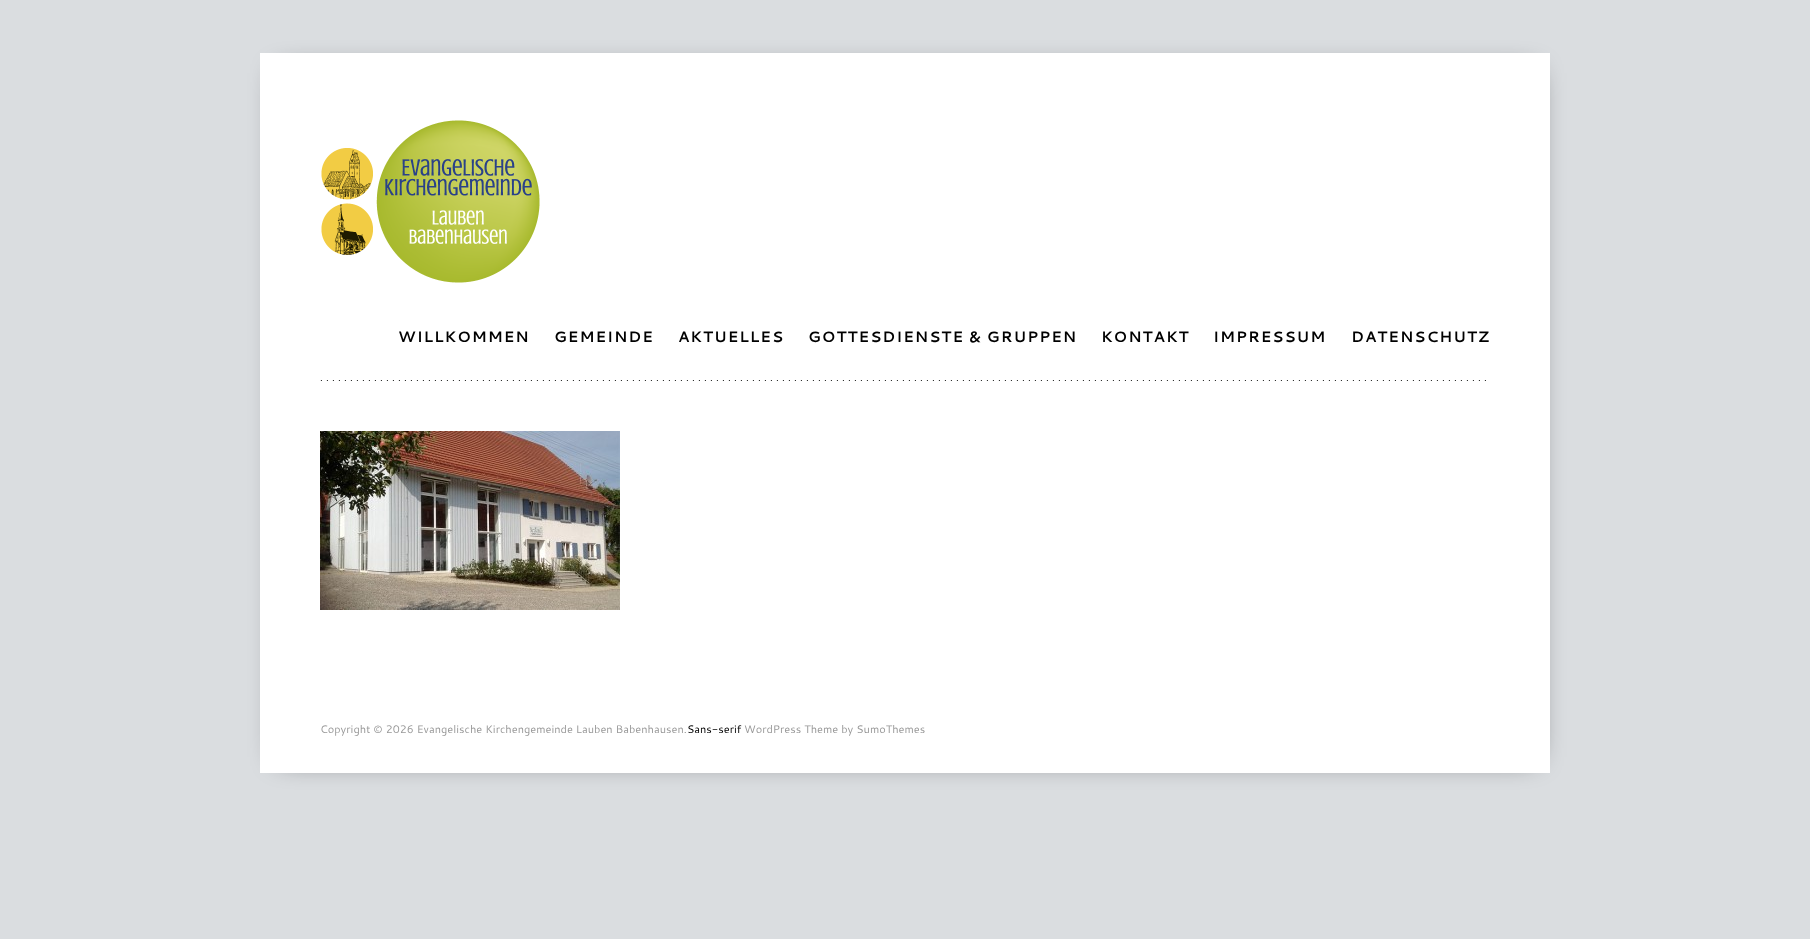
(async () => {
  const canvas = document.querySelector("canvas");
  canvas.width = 1810;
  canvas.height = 939;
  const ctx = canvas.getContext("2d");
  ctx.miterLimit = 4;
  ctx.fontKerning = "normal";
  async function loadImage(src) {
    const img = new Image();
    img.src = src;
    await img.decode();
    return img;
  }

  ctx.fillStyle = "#dadde0";
  ctx.fillRect(0, 0, 1810, 939);
  ctx.fillStyle = "rgba(0, 0, 0, 0.75)";
  ctx.filter = "blur(14px)";
  ctx.beginPath();
  ctx.rect(280, 73, 1254, 684);
  ctx.fill();
  ctx.filter = "none";
  ctx.fillStyle = "#ffffff";
  ctx.fillRect(260, 53, 1290, 720);
  ctx.drawImage(await loadImage("img/1.png"), 320, 380, 1166, 1);
  ctx.drawImage(await loadImage("img/2.png"), 321, 120, 219, 163);
  ctx.drawImage(await loadImage("img/3.png"), 320, 431, 300, 179);
  ctx.letterSpacing = "1px";
  ctx.font = "bold 15px Cantarell";
  ctx.fillStyle = "#000000";
  for (const [text, x, y] of [
    ["WILLKOMMEN", 398, 342],
    ["GEMEINDE", 554, 342],
    ["AKTUELLES", 678, 342],
    ["GOTTESDIENSTE & GRUPPEN", 808, 342],
    ["KONTAKT", 1101, 342],
    ["IMPRESSUM", 1213, 342],
    ["DATENSCHUTZ", 1351, 342],
  ]) {
    ctx.fillText(text, x, y);
  }
  ctx.letterSpacing = "0px";
  ctx.font = "11px Cantarell";
  ctx.fillStyle = "#999999";
  ctx.fillText("Copyright © 2026 Evangelische Kirchengemeinde Lauben Babenhausen.", 320, 733);
  ctx.fillStyle = "#000000";
  ctx.fillText("Sans-serif", 687, 733);
  ctx.fillStyle = "#999999";
  ctx.fillText("WordPress Theme by SumoThemes", 744, 733);
})();
